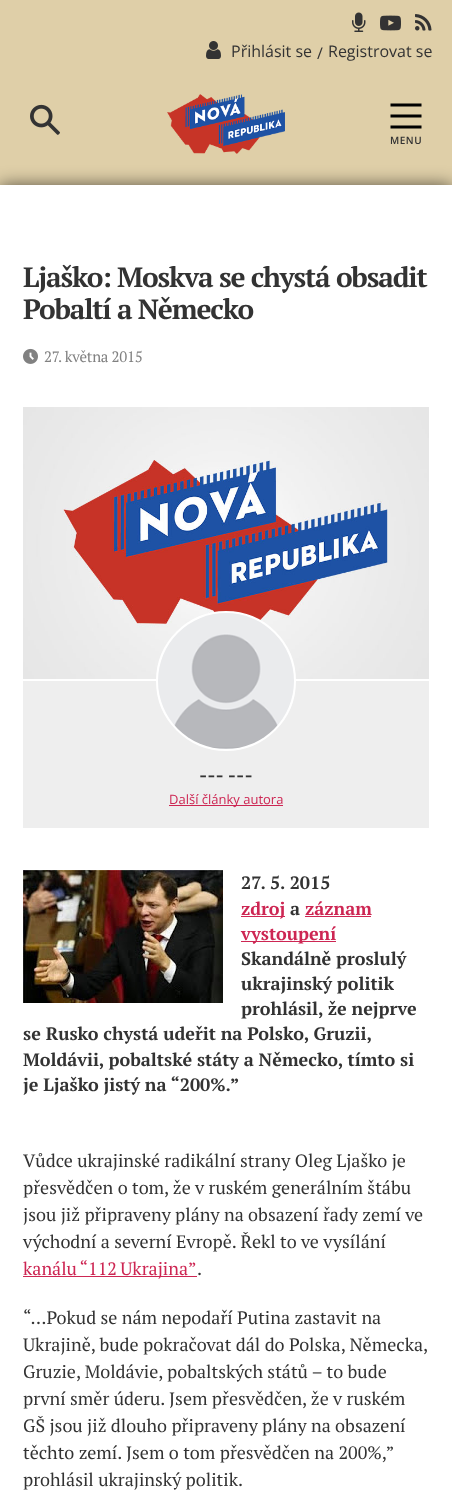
(async () => {
  const canvas = document.querySelector("canvas");
  canvas.width = 452;
  canvas.height = 1509;
  const ctx = canvas.getContext("2d");
  ctx.miterLimit = 4;
  ctx.fontKerning = "normal";
  async function loadImage(src) {
    const img = new Image();
    img.src = src;
    await img.decode();
    return img;
  }
  let path;

  ctx.fillStyle = "#dfcfa8";
  ctx.fillRect(0, 0, 452, 1509);
  ctx.drawImage(await loadImage("img/1.png"), 352, 12, 14, 20);
  ctx.drawImage(await loadImage("img/2.png"), 380, 15, 21, 16);
  ctx.drawImage(await loadImage("img/3.png"), 415, 14, 17, 17);
  ctx.drawImage(await loadImage("img/4.png"), 206, 41, 15, 18);
  ctx.drawImage(await loadImage("img/5.png"), 30, 104, 30, 31);
  ctx.drawImage(await loadImage("img/6.png"), 167, 94, 118, 60);
  path = new Path2D("M390.5 105H421.5M390.5 116H421.5M390.5 127H421.5");
  ctx.strokeStyle = "#000000";
  ctx.lineWidth = 3.1;
  ctx.stroke(path);
  ctx.fillStyle = "rgba(0, 0, 0, 0.6)";
  ctx.filter = "blur(8.5px)";
  ctx.beginPath();
  ctx.rect(0, 185, 452, 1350);
  ctx.fill();
  ctx.filter = "none";
  ctx.fillStyle = "#ffffff";
  ctx.fillRect(0, 185, 452, 1324);
  ctx.drawImage(await loadImage("img/7.png"), 23, 348, 15, 16);
  ctx.drawImage(await loadImage("img/8.png"), 23, 407, 406, 272);
  ctx.fillStyle = "#eeeeee";
  ctx.fillRect(23, 681, 406, 147);
  ctx.fillStyle = "#ffffff";
  ctx.beginPath();
  ctx.arc(226, 681, 69, 0, Math.PI * 2);
  ctx.fill();
  ctx.strokeStyle = "#ffffff";
  ctx.lineWidth = 2;
  ctx.stroke();
  ctx.drawImage(await loadImage("img/9.png"), 158, 613, 136, 136);
  ctx.fillStyle = "#cd2653";
  ctx.fillRect(169, 805, 114, 1);
  ctx.drawImage(await loadImage("img/10.png"), 23, 870, 200, 133);
  for (const [x, y, w, h, color] of [
    [241, 916, 44, 1, "#cd2653"],
    [305, 916, 66, 1, "#cd2653"],
    [241, 941, 95, 1, "#cd2653"],
    [23, 1276, 174, 1, "#cd2653"],
  ]) {
    ctx.fillStyle = color;
    ctx.fillRect(x, y, w, h);
  }
  ctx.font = "16px Open Sans";
  ctx.fillStyle = "#333333";
  for (const [text, x, y] of [
    ["Přihlásit se", 231, 57],
    ["/", 317, 59],
    ["Registrovat se", 328, 57],
  ]) {
    ctx.fillText(text, x, y);
  }
  ctx.letterSpacing = "0.5px";
  ctx.font = "600 10px Open Sans";
  ctx.fillText("MENU", 390, 144);
  ctx.letterSpacing = "-1.15px";
  ctx.font = "bold 28px PT Serif";
  ctx.fillText("Ljaško: Moskva se chystá obsadit", 23, 287);
  ctx.fillText("Pobaltí a Německo", 23, 319);
  ctx.letterSpacing = "-0.25px";
  ctx.font = "15px PT Serif";
  ctx.fillStyle = "#818181";
  ctx.fillText("27. května 2015", 44, 362);
  ctx.letterSpacing = "0px";
  ctx.font = "bold 20px PT Serif";
  ctx.fillStyle = "#333333";
  ctx.fillText("--- ---", 199, 782);
  ctx.font = "13px Open Sans";
  ctx.fillStyle = "#cd2653";
  ctx.fillText("Další články autora", 169, 804);
  ctx.font = "bold 18px PT Serif";
  ctx.fillStyle = "#333333";
  ctx.fillText("27. 5. 2015", 241, 889);
  ctx.fillStyle = "#cd2653";
  ctx.fillText("zdroj", 241, 915);
  ctx.fillStyle = "#333333";
  ctx.fillText("a", 290, 915);
  ctx.fillStyle = "#cd2653";
  ctx.fillText("záznam", 305, 915);
  ctx.fillText("vystoupení", 241, 940);
  ctx.fillStyle = "#333333";
  for (const [text, x, y] of [
    ["Skandálně proslulý", 241, 965],
    ["ukrajinský politik", 241, 990],
    ["prohlásil, že nejprve", 241, 1015],
    ["se Rusko chystá udeřit na Polsko, Gruzii,", 23, 1040],
    ["Moldávii, pobaltské státy a Německo, tímto si", 23, 1066],
    ["je Ljaško jistý na “200%.”", 23, 1091],
  ]) {
    ctx.fillText(text, x, y);
  }
  ctx.font = "18px PT Serif";
  for (const [text, x, y] of [
    ["Vůdce ukrajinské radikální strany Oleg Ljaško je", 23, 1167],
    ["přesvědčen o tom, že v ruském generálním štábu", 23, 1194],
    ["jsou již připraveny plány na obsazení řady zemí ve", 23, 1221],
    ["východní a severní Evropě. Řekl to ve vysílání", 23, 1248],
  ]) {
    ctx.fillText(text, x, y);
  }
  ctx.wordSpacing = "-1px";
  ctx.fillStyle = "#cd2653";
  ctx.fillText("kanálu “112 Ukrajina”", 23, 1275);
  ctx.wordSpacing = "0px";
  ctx.fillStyle = "#333333";
  for (const [text, x, y] of [
    [".", 197, 1275],
    ["“…Pokud se nám nepodaří Putina zastavit na", 23, 1324],
    ["Ukrajině, bude pokračovat dál do Polska, Německa,", 23, 1351],
    ["Gruzie, Moldávie, pobaltských států – to bude", 23, 1378],
    ["první směr úderu. Jsem přesvědčen, že v ruském", 23, 1405],
    ["GŠ jsou již dlouho připraveny plány na obsazení", 23, 1432],
    ["těchto zemí. Jsem o tom přesvědčen na 200%,”", 23, 1459],
    ["prohlásil ukrajinský politik.", 23, 1486],
  ]) {
    ctx.fillText(text, x, y);
  }
})();
